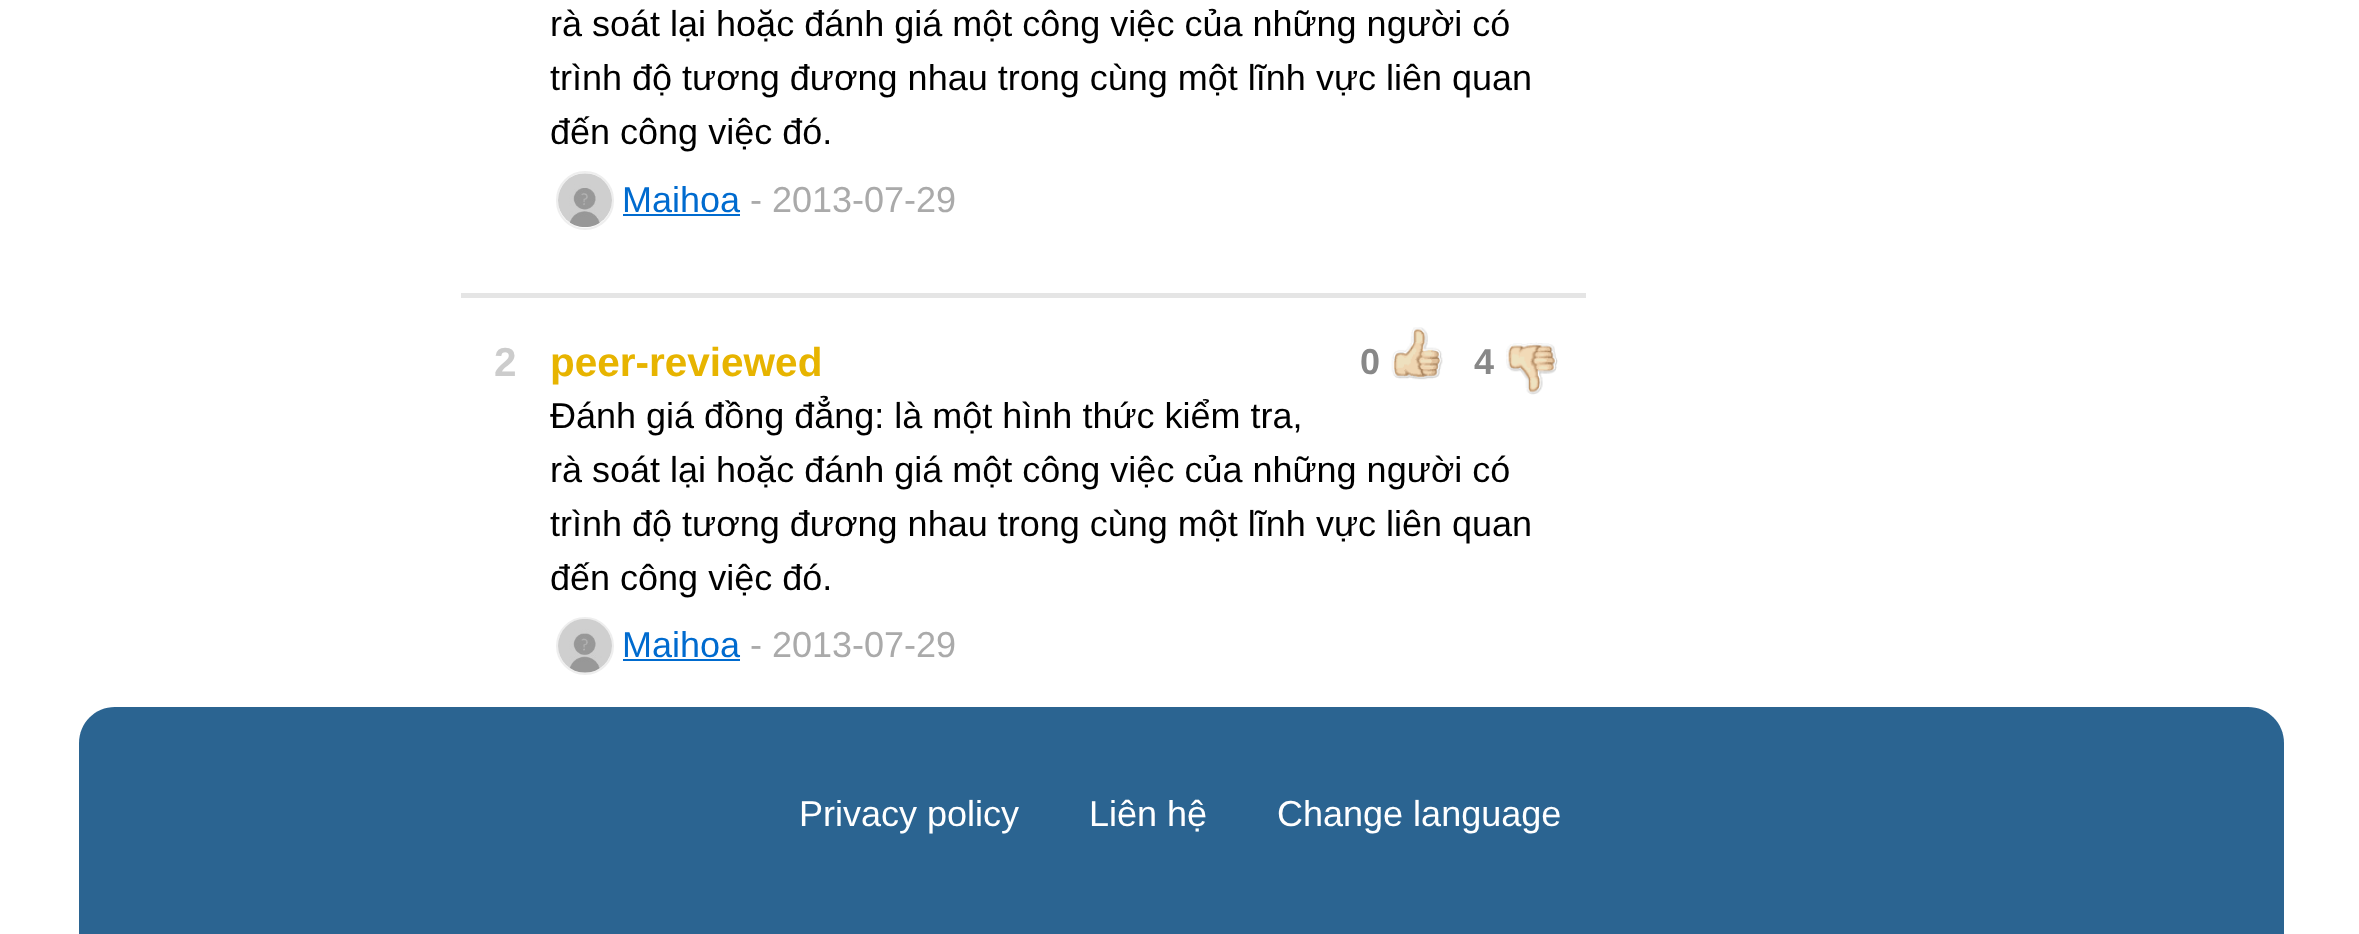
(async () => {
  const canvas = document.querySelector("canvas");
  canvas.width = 2359;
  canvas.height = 934;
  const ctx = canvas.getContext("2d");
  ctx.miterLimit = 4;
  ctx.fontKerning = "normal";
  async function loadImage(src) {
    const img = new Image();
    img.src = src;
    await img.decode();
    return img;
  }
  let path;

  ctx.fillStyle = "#ffffff";
  ctx.fillRect(0, 0, 2359, 934);
  ctx.beginPath();
  ctx.roundRect(557, 172, 56, 57, 28);
  ctx.strokeStyle = "#eeeeee";
  ctx.lineWidth = 2;
  ctx.stroke();
  ctx.drawImage(await loadImage("img/1.png"), 558, 173, 54, 55);
  ctx.fillStyle = "#006bcf";
  ctx.fillRect(623, 214, 117, 2);
  ctx.fillStyle = "#e5e5e5";
  ctx.fillRect(461, 293, 1125, 5);
  ctx.drawImage(await loadImage("img/2.png"), 1391, 327, 52, 53);
  ctx.drawImage(await loadImage("img/3.png"), 1506, 342, 52, 53);
  ctx.beginPath();
  ctx.arc(585, 646, 28, 0, Math.PI * 2);
  ctx.stroke();
  ctx.drawImage(await loadImage("img/4.png"), 558, 619, 54, 54);
  ctx.fillStyle = "#006bcf";
  ctx.fillRect(623, 659, 117, 2);
  ctx.fillStyle = "#2b6491";
  path = new Path2D("M115 707H2248C2268 707 2284 723 2284 743V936H79V743C79 723 95 707 115 707Z");
  ctx.fill(path);
  ctx.font = "36px Liberation Sans";
  ctx.fillStyle = "#000000";
  for (const [text, x, y] of [
    ["rà soát lại hoặc đánh giá một công việc của những người có", 550, 36],
    ["trình độ tương đương nhau trong cùng một lĩnh vực liên quan", 550, 90],
    ["đến công việc đó.", 550, 144],
  ]) {
    ctx.fillText(text, x, y);
  }
  ctx.fillStyle = "#006bcf";
  ctx.fillText("Maihoa", 622, 212);
  ctx.fillStyle = "#aaaaaa";
  ctx.fillText("- 2013-07-29", 750, 212);
  ctx.font = "bold 40.5px Liberation Sans";
  ctx.fillStyle = "#cccccc";
  ctx.fillText("2", 494, 376);
  ctx.fillStyle = "#e7b400";
  ctx.fillText("peer-reviewed", 550, 376);
  ctx.font = "bold 36px Liberation Sans";
  ctx.fillStyle = "#888888";
  ctx.fillText("0", 1360, 374);
  ctx.fillText("4", 1474, 374);
  ctx.font = "36px Liberation Sans";
  ctx.fillStyle = "#000000";
  for (const [text, x, y] of [
    ["Đánh giá đồng đẳng: là một hình thức kiểm tra,", 550, 428],
    ["rà soát lại hoặc đánh giá một công việc của những người có", 550, 482],
    ["trình độ tương đương nhau trong cùng một lĩnh vực liên quan", 550, 536],
    ["đến công việc đó.", 550, 590],
  ]) {
    ctx.fillText(text, x, y);
  }
  ctx.fillStyle = "#006bcf";
  ctx.fillText("Maihoa", 622, 657);
  ctx.fillStyle = "#aaaaaa";
  ctx.fillText("- 2013-07-29", 750, 657);
  ctx.fillStyle = "#ffffff";
  for (const [text, x, y] of [
    ["Privacy policy", 799, 826],
    ["Liên hệ", 1089, 826],
    ["Change language", 1277, 826],
  ]) {
    ctx.fillText(text, x, y);
  }
})();
